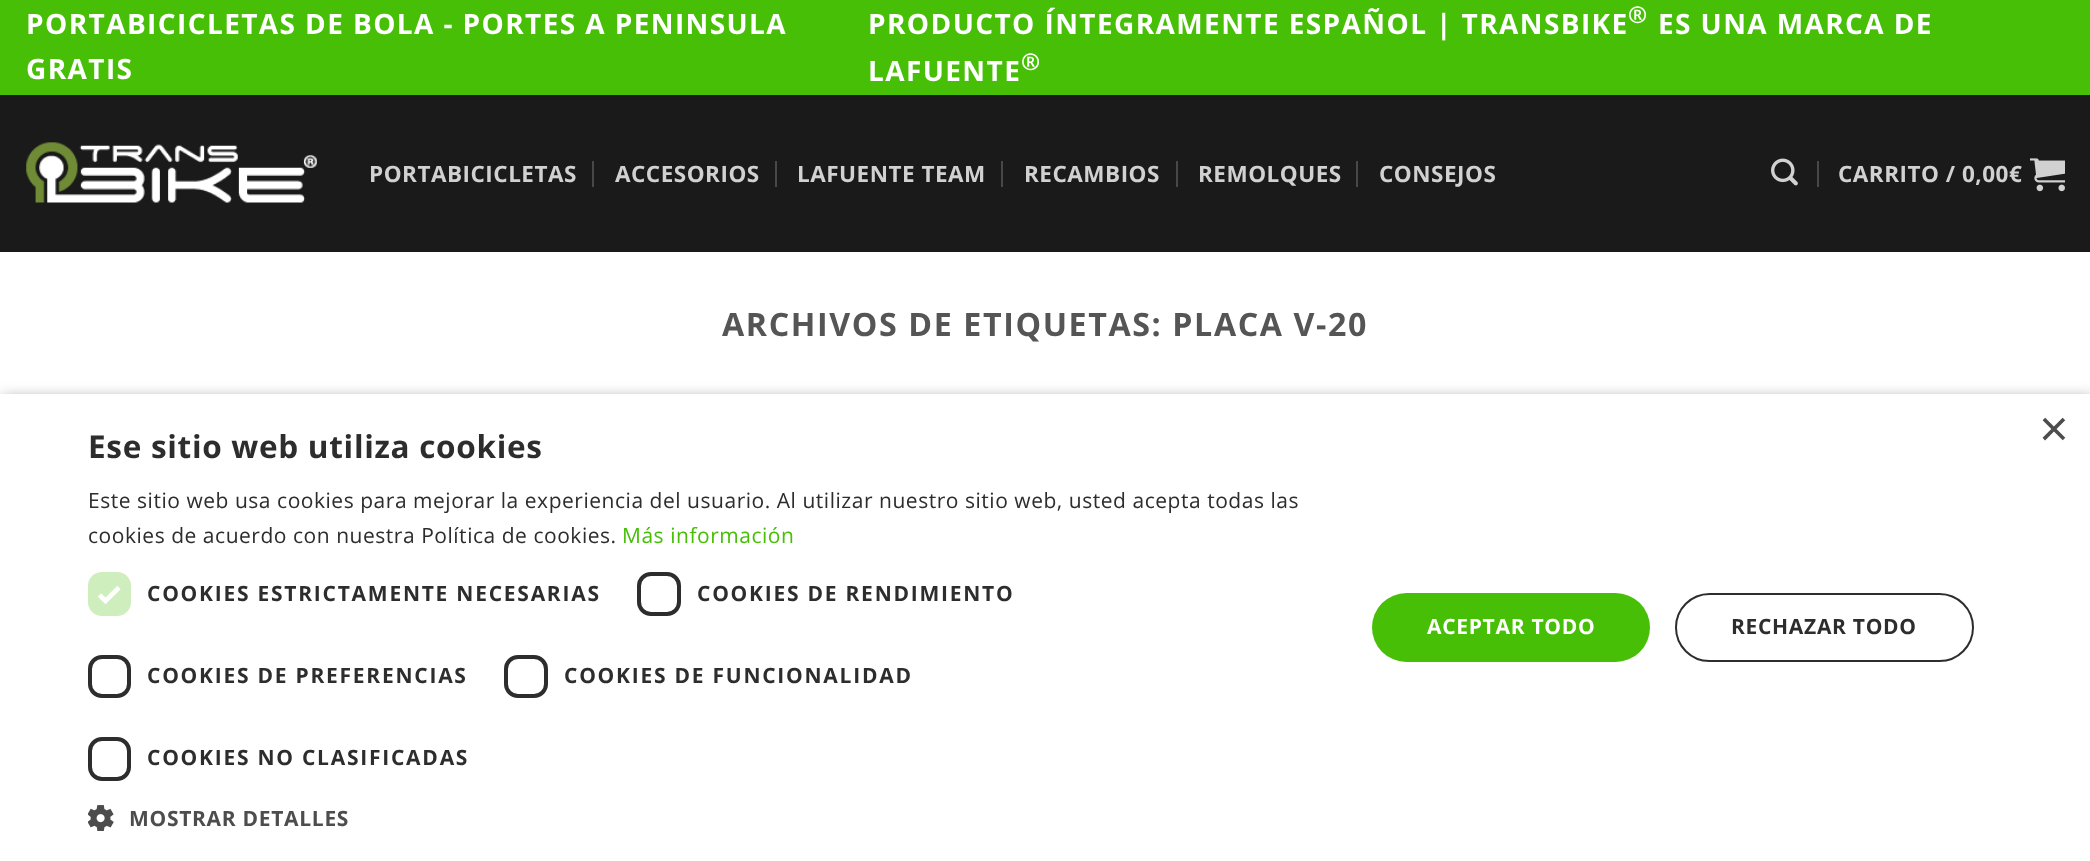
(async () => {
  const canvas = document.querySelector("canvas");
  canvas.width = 2090;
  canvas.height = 861;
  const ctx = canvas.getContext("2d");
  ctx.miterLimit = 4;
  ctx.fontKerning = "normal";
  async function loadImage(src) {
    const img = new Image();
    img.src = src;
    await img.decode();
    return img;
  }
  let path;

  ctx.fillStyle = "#ffffff";
  ctx.fillRect(0, 0, 2090, 861);
  ctx.fillStyle = "#46bf06";
  ctx.fillRect(0, 0, 2090, 95);
  ctx.fillStyle = "#1a1a1a";
  ctx.fillRect(0, 95, 2090, 157);
  ctx.drawImage(await loadImage("img/1.png"), 26, 142, 291, 61);
  for (const [x, y, w, h, color] of [
    [592, 161, 2, 26, "#484848"],
    [775, 161, 2, 26, "#484848"],
    [1001, 161, 2, 26, "#484848"],
    [1176, 161, 2, 26, "#484848"],
    [1356, 161, 2, 26, "#484848"],
  ]) {
    ctx.fillStyle = color;
    ctx.fillRect(x, y, w, h);
  }
  ctx.drawImage(await loadImage("img/2.png"), 1771, 158, 27, 28);
  ctx.fillRect(1817, 161, 2, 26);
  ctx.drawImage(await loadImage("img/3.png"), 2030, 158, 35, 34);
  ctx.fillStyle = "rgba(0, 0, 0, 0.35)";
  ctx.filter = "blur(7px)";
  ctx.beginPath();
  ctx.rect(2, 397, 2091, 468);
  ctx.fill();
  ctx.filter = "none";
  ctx.fillStyle = "#ffffff";
  ctx.fillRect(0, 394, 2090, 467);
  ctx.fillStyle = "#cfeebe";
  ctx.beginPath();
  ctx.roundRect(88, 572, 43, 44, 14);
  ctx.fill();
  path = new Path2D("M99.5 595L105.5 601L119 587.5");
  ctx.strokeStyle = "#ffffff";
  ctx.lineWidth = 4.6;
  ctx.stroke(path);
  ctx.beginPath();
  ctx.roundRect(639, 574, 40, 40, 12);
  ctx.strokeStyle = "#2d2d2d";
  ctx.lineWidth = 4;
  ctx.stroke();
  ctx.beginPath();
  ctx.roundRect(90, 657, 39, 39, 12);
  ctx.stroke();
  ctx.beginPath();
  ctx.roundRect(506, 657, 40, 39, 12);
  ctx.stroke();
  ctx.beginPath();
  ctx.roundRect(90, 739, 39, 40, 12);
  ctx.stroke();
  ctx.drawImage(await loadImage("img/4.png"), 88, 805, 26, 26);
  ctx.fillStyle = "#46bf06";
  ctx.beginPath();
  ctx.roundRect(1372, 593, 278, 69, 34.5);
  ctx.fill();
  ctx.beginPath();
  ctx.roundRect(1676, 594, 297, 67, 33.5);
  ctx.lineWidth = 2;
  ctx.stroke();
  ctx.letterSpacing = "1.4px";
  ctx.font = "bold 28px Open Sans";
  ctx.fillStyle = "#ffffff";
  for (const [text, x, y] of [
    ["PORTABICICLETAS DE BOLA - PORTES A PENINSULA", 26, 34],
    ["GRATIS", 26, 79],
    ["PRODUCTO ÍNTEGRAMENTE ESPAÑOL | TRANSBIKE", 868, 34],
  ]) {
    ctx.fillText(text, x, y);
  }
  ctx.font = "bold 23px Open Sans";
  ctx.fillText("®", 1628, 23);
  ctx.font = "bold 28px Open Sans";
  ctx.fillText("ES UNA MARCA DE", 1658, 34);
  ctx.fillText("LAFUENTE", 868, 81);
  ctx.font = "bold 23px Open Sans";
  ctx.fillText("®", 1021, 70);
  ctx.letterSpacing = "0.5px";
  ctx.font = "bold 22.5px Open Sans";
  ctx.fillStyle = "#d1d1d1";
  for (const [text, x, y] of [
    ["PORTABICICLETAS", 369, 182],
    ["ACCESORIOS", 615, 182],
    ["LAFUENTE TEAM", 797, 182],
    ["RECAMBIOS", 1024, 182],
    ["REMOLQUES", 1198, 182],
    ["CONSEJOS", 1379, 182],
    ["CARRITO / 0,00€", 1838, 182],
  ]) {
    ctx.fillText(text, x, y);
  }
  ctx.letterSpacing = "1.6px";
  ctx.font = "bold 32.2px Open Sans";
  ctx.fillStyle = "#555555";
  ctx.fillText("ARCHIVOS DE ETIQUETAS: PLACA V-20", 722, 336);
  ctx.letterSpacing = "0px";
  ctx.font = "51px Liberation Sans";
  ctx.fillStyle = "#4d4d4d";
  ctx.fillText("×", 2039, 446);
  ctx.letterSpacing = "0.7px";
  ctx.font = "bold 31.5px Open Sans";
  ctx.fillStyle = "#2d2d2d";
  ctx.fillText("Ese sitio web utiliza cookies", 88, 458);
  ctx.letterSpacing = "0.53px";
  ctx.font = "21px Open Sans";
  ctx.fillText("Este sitio web usa cookies para mejorar la experiencia del usuario. Al utilizar nuestro sitio web, usted acepta todas las", 88, 508);
  ctx.fillText("cookies de acuerdo con nuestra Política de cookies.", 88, 543);
  ctx.fillStyle = "#46bf06";
  ctx.fillText("Más información", 622, 543);
  ctx.letterSpacing = "1.75px";
  ctx.font = "bold 21px Open Sans";
  ctx.fillStyle = "#2d2d2d";
  for (const [text, x, y] of [
    ["COOKIES ESTRICTAMENTE NECESARIAS", 147, 601],
    ["COOKIES DE RENDIMIENTO", 697, 601],
    ["COOKIES DE PREFERENCIAS", 147, 683],
    ["COOKIES DE FUNCIONALIDAD", 564, 683],
    ["COOKIES NO CLASIFICADAS", 147, 765],
  ]) {
    ctx.fillText(text, x, y);
  }
  ctx.letterSpacing = "0.7px";
  ctx.fillStyle = "#4d4d4d";
  ctx.fillText("MOSTRAR DETALLES", 129, 826);
  ctx.fillStyle = "#ffffff";
  ctx.fillText("ACEPTAR TODO", 1427, 634);
  ctx.fillStyle = "#2d2d2d";
  ctx.fillText("RECHAZAR TODO", 1731, 634);
})();
